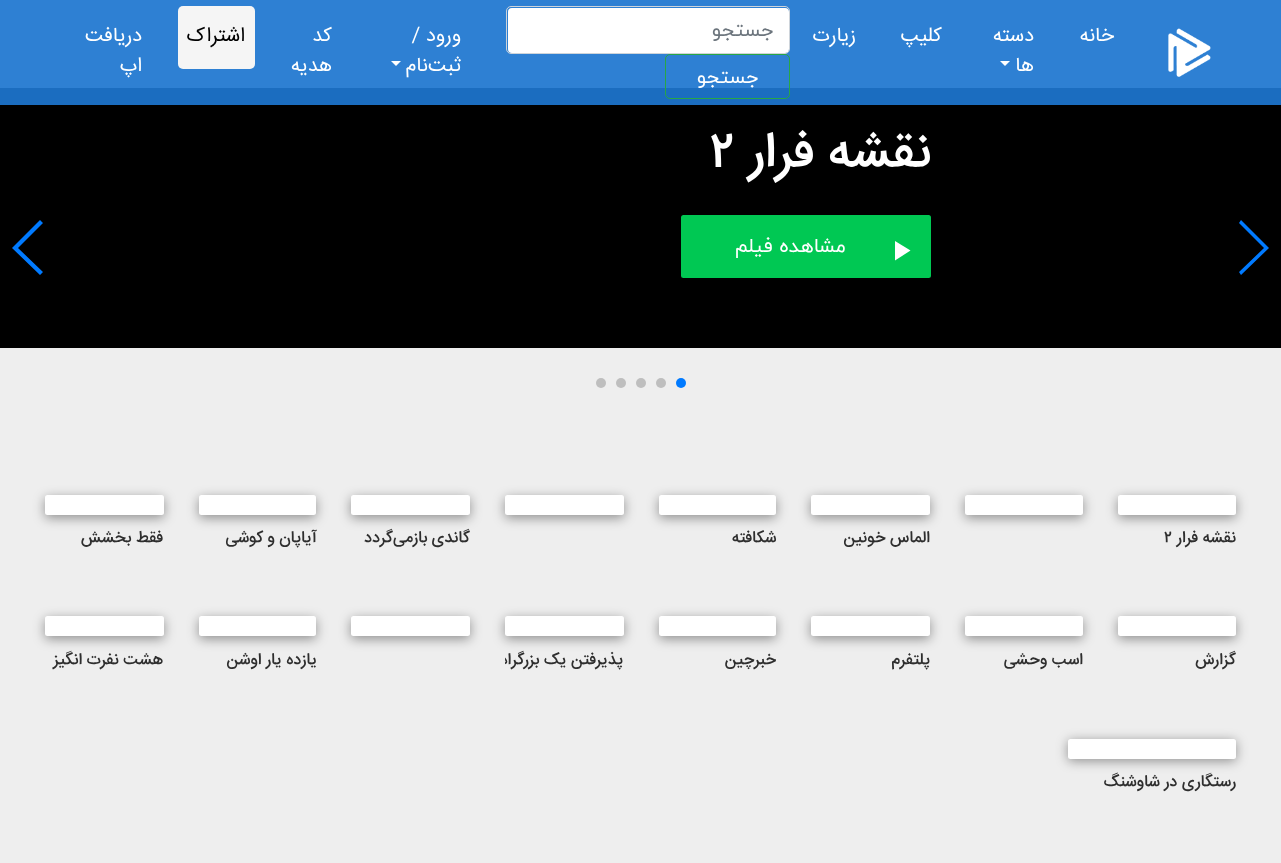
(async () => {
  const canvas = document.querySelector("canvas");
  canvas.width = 1281;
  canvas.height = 863;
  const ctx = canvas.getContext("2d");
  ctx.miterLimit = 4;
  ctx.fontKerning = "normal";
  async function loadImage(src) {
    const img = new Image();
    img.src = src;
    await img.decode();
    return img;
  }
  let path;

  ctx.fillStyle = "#eeeeee";
  ctx.fillRect(0, 0, 1281, 863);
  ctx.fillStyle = "#2e80d3";
  ctx.fillRect(0, 0, 1281, 88);
  ctx.drawImage(await loadImage("img/1.png"), 1168, 28, 43, 49);
  ctx.fillStyle = "#ffffff";
  path = new Path2D("M1000 61H1010L1005 66Z");
  ctx.fill(path);
  ctx.beginPath();
  ctx.roundRect(508, 8, 281, 45, 4);
  ctx.fill();
  ctx.beginPath();
  ctx.roundRect(506.5, 6.5, 283, 47, 4.5);
  ctx.strokeStyle = "#ced4da";
  ctx.stroke();
  ctx.fillStyle = "#1b6dc0";
  ctx.fillRect(0, 88, 1281, 17);
  ctx.beginPath();
  ctx.roundRect(665.5, 54.5, 124, 44, 4.5);
  ctx.strokeStyle = "#28a745";
  ctx.stroke();
  ctx.fillStyle = "#ffffff";
  path = new Path2D("M391 61H401L396 66Z");
  ctx.fill(path);
  ctx.fillStyle = "#f5f5f5";
  ctx.beginPath();
  ctx.roundRect(178, 6, 77, 63, 5);
  ctx.fill();
  ctx.fillStyle = "#000000";
  ctx.fillRect(0, 105, 1281, 243);
  ctx.fillStyle = "#007aff";
  path = new Path2D("M1269 248L1241 275L1239 272L1264 248L1239 223L1241 220Z");
  ctx.fill(path);
  ctx.fillStyle = "#00c853";
  ctx.beginPath();
  ctx.roundRect(681, 215, 250, 63, 2.5);
  ctx.fill();
  ctx.fillStyle = "#ffffff";
  path = new Path2D("M895 241V260.5L910.5 250.5Z");
  ctx.fill(path);
  ctx.fillStyle = "#007aff";
  path = new Path2D("M12 248L40 220L43 223L18 248L43 272L40 275Z");
  ctx.fill(path);
  ctx.beginPath();
  ctx.arc(681, 383, 5, 0, Math.PI * 2);
  ctx.fill();
  ctx.fillStyle = "#bebebe";
  ctx.beginPath();
  ctx.arc(661, 383, 5, 0, Math.PI * 2);
  ctx.fill();
  ctx.beginPath();
  ctx.arc(641, 383, 5, 0, Math.PI * 2);
  ctx.fill();
  ctx.beginPath();
  ctx.arc(621, 383, 5, 0, Math.PI * 2);
  ctx.fill();
  ctx.beginPath();
  ctx.arc(601, 383, 5, 0, Math.PI * 2);
  ctx.fill();
  ctx.fillStyle = "rgba(0, 0, 0, 0.4)";
  ctx.filter = "blur(6px)";
  ctx.beginPath();
  ctx.roundRect(1118, 498, 118, 20, 2.5);
  ctx.fill();
  ctx.filter = "none";
  ctx.fillStyle = "#ffffff";
  ctx.beginPath();
  ctx.roundRect(1118, 495, 118, 20, 2.5);
  ctx.fill();
  ctx.fillStyle = "rgba(0, 0, 0, 0.4)";
  ctx.filter = "blur(6px)";
  ctx.beginPath();
  ctx.roundRect(965, 498, 118, 20, 2.5);
  ctx.fill();
  ctx.filter = "none";
  ctx.fillStyle = "#ffffff";
  ctx.beginPath();
  ctx.roundRect(965, 495, 118, 20, 2.5);
  ctx.fill();
  ctx.fillStyle = "rgba(0, 0, 0, 0.4)";
  ctx.filter = "blur(6px)";
  ctx.beginPath();
  ctx.roundRect(811, 498, 119, 20, 2.5);
  ctx.fill();
  ctx.filter = "none";
  ctx.fillStyle = "#ffffff";
  ctx.beginPath();
  ctx.roundRect(811, 495, 119, 20, 2.5);
  ctx.fill();
  ctx.fillStyle = "rgba(0, 0, 0, 0.4)";
  ctx.filter = "blur(6px)";
  ctx.beginPath();
  ctx.roundRect(659, 498, 117, 20, 2.5);
  ctx.fill();
  ctx.filter = "none";
  ctx.fillStyle = "#ffffff";
  ctx.beginPath();
  ctx.roundRect(659, 495, 117, 20, 2.5);
  ctx.fill();
  ctx.fillStyle = "rgba(0, 0, 0, 0.4)";
  ctx.filter = "blur(6px)";
  ctx.beginPath();
  ctx.roundRect(505, 498, 119, 20, 2.5);
  ctx.fill();
  ctx.filter = "none";
  ctx.fillStyle = "#ffffff";
  ctx.beginPath();
  ctx.roundRect(505, 495, 119, 20, 2.5);
  ctx.fill();
  ctx.fillStyle = "rgba(0, 0, 0, 0.4)";
  ctx.filter = "blur(6px)";
  ctx.beginPath();
  ctx.roundRect(351, 498, 119, 20, 2.5);
  ctx.fill();
  ctx.filter = "none";
  ctx.fillStyle = "#ffffff";
  ctx.beginPath();
  ctx.roundRect(351, 495, 119, 20, 2.5);
  ctx.fill();
  ctx.fillStyle = "rgba(0, 0, 0, 0.4)";
  ctx.filter = "blur(6px)";
  ctx.beginPath();
  ctx.roundRect(199, 498, 117, 20, 2.5);
  ctx.fill();
  ctx.filter = "none";
  ctx.fillStyle = "#ffffff";
  ctx.beginPath();
  ctx.roundRect(199, 495, 117, 20, 2.5);
  ctx.fill();
  ctx.fillStyle = "rgba(0, 0, 0, 0.4)";
  ctx.filter = "blur(6px)";
  ctx.beginPath();
  ctx.roundRect(45, 498, 119, 20, 2.5);
  ctx.fill();
  ctx.filter = "none";
  ctx.fillStyle = "#ffffff";
  ctx.beginPath();
  ctx.roundRect(45, 495, 119, 20, 2.5);
  ctx.fill();
  ctx.fillStyle = "rgba(0, 0, 0, 0.4)";
  ctx.filter = "blur(6px)";
  ctx.beginPath();
  ctx.roundRect(351, 619, 119, 20, 2.5);
  ctx.fill();
  ctx.filter = "none";
  ctx.fillStyle = "#ffffff";
  ctx.beginPath();
  ctx.roundRect(351, 616, 119, 20, 2.5);
  ctx.fill();
  ctx.fillStyle = "rgba(0, 0, 0, 0.4)";
  ctx.filter = "blur(6px)";
  ctx.beginPath();
  ctx.roundRect(1118, 619, 118, 20, 2.5);
  ctx.fill();
  ctx.filter = "none";
  ctx.fillStyle = "#ffffff";
  ctx.beginPath();
  ctx.roundRect(1118, 616, 118, 20, 2.5);
  ctx.fill();
  ctx.fillStyle = "rgba(0, 0, 0, 0.4)";
  ctx.filter = "blur(6px)";
  ctx.beginPath();
  ctx.roundRect(965, 619, 118, 20, 2.5);
  ctx.fill();
  ctx.filter = "none";
  ctx.fillStyle = "#ffffff";
  ctx.beginPath();
  ctx.roundRect(965, 616, 118, 20, 2.5);
  ctx.fill();
  ctx.fillStyle = "rgba(0, 0, 0, 0.4)";
  ctx.filter = "blur(6px)";
  ctx.beginPath();
  ctx.roundRect(811, 619, 119, 20, 2.5);
  ctx.fill();
  ctx.filter = "none";
  ctx.fillStyle = "#ffffff";
  ctx.beginPath();
  ctx.roundRect(811, 616, 119, 20, 2.5);
  ctx.fill();
  ctx.fillStyle = "rgba(0, 0, 0, 0.4)";
  ctx.filter = "blur(6px)";
  ctx.beginPath();
  ctx.roundRect(659, 619, 117, 20, 2.5);
  ctx.fill();
  ctx.filter = "none";
  ctx.fillStyle = "#ffffff";
  ctx.beginPath();
  ctx.roundRect(659, 616, 117, 20, 2.5);
  ctx.fill();
  ctx.fillStyle = "rgba(0, 0, 0, 0.4)";
  ctx.filter = "blur(6px)";
  ctx.beginPath();
  ctx.roundRect(505, 619, 119, 20, 2.5);
  ctx.fill();
  ctx.filter = "none";
  ctx.fillStyle = "#ffffff";
  ctx.beginPath();
  ctx.roundRect(505, 616, 119, 20, 2.5);
  ctx.fill();
  ctx.fillStyle = "rgba(0, 0, 0, 0.4)";
  ctx.filter = "blur(6px)";
  ctx.beginPath();
  ctx.roundRect(199, 619, 117, 20, 2.5);
  ctx.fill();
  ctx.filter = "none";
  ctx.fillStyle = "#ffffff";
  ctx.beginPath();
  ctx.roundRect(199, 616, 117, 20, 2.5);
  ctx.fill();
  ctx.fillStyle = "rgba(0, 0, 0, 0.4)";
  ctx.filter = "blur(6px)";
  ctx.beginPath();
  ctx.roundRect(45, 619, 119, 20, 2.5);
  ctx.fill();
  ctx.filter = "none";
  ctx.fillStyle = "#ffffff";
  ctx.beginPath();
  ctx.roundRect(45, 616, 119, 20, 2.5);
  ctx.fill();
  ctx.fillStyle = "rgba(0, 0, 0, 0.4)";
  ctx.filter = "blur(6px)";
  ctx.beginPath();
  ctx.roundRect(1068, 741, 168, 20, 2.5);
  ctx.fill();
  ctx.filter = "none";
  ctx.fillStyle = "#ffffff";
  ctx.beginPath();
  ctx.roundRect(1068, 739, 168, 20, 2.5);
  ctx.fill();
  ctx.direction = "rtl";
  ctx.font = "20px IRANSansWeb";
  for (const [text, x, y] of [
    ["خانه", 1114, 41],
    ["دسته", 1034, 41],
    ["ها", 1034, 71],
    ["کلیپ", 942, 41],
    ["زیارت", 856, 41],
  ]) {
    ctx.fillText(text, x, y);
  }
  ctx.font = "20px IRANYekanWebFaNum";
  ctx.fillStyle = "#6c757d";
  ctx.fillText("جستجو", 774, 36);
  ctx.fillStyle = "#ffffff";
  ctx.fillText("جستجو", 759, 83);
  ctx.font = "20px IRANSansWeb";
  for (const [text, x, y] of [
    ["ورود /", 461, 41],
    ["ثبت‌نام", 461, 71],
    ["کد", 332, 41],
    ["هدیه", 332, 71],
  ]) {
    ctx.fillText(text, x, y);
  }
  ctx.fillStyle = "#000000";
  ctx.fillText("اشتراک", 245, 41);
  ctx.fillStyle = "#ffffff";
  ctx.fillText("دریافت", 142, 41);
  ctx.fillText("اپ", 142, 71);
  ctx.font = "500 50px IRANSansWeb";
  ctx.fillText("نقشه فرار", 931, 166);
  ctx.direction = "ltr";
  ctx.fillText("۲", 710, 166);
  ctx.direction = "rtl";
  ctx.font = "20px IRANYekanWebFaNum";
  ctx.fillText("مشاهده فیلم", 846, 252);
  ctx.font = "500 16.25px IRANSansWeb";
  ctx.fillStyle = "#2e2e2e";
  ctx.fillText("نقشه فرار", 1236, 542);
  ctx.direction = "ltr";
  ctx.fillText("۲", 1164, 542);
  ctx.direction = "rtl";
  ctx.fillText("الماس خونین", 930, 542);
  ctx.save();
  ctx.beginPath();
  ctx.rect(659, 528, 117, 23);
  ctx.clip();
  ctx.fillText("شکافته", 776, 542);
  ctx.restore();
  for (const [text, x, y] of [
    ["گاندی بازمی‌گردد", 470, 542],
    ["آیاپان و کوشی", 317, 542],
    ["فقط بخشش", 163, 542],
    ["گزارش", 1236, 664],
    ["اسب وحشی", 1083, 664],
    ["پلتفرم", 930, 664],
  ]) {
    ctx.fillText(text, x, y);
  }
  ctx.save();
  ctx.beginPath();
  ctx.rect(659, 649, 117, 25);
  ctx.clip();
  ctx.fillText("خبرچین", 776, 664);
  ctx.restore();
  ctx.save();
  ctx.beginPath();
  ctx.rect(505, 649, 119, 25);
  ctx.clip();
  ctx.fillText("پذیرفتن یک بزرگراه", 623, 664);
  ctx.restore();
  for (const [text, x, y] of [
    ["یازده یار اوشن", 317, 664],
    ["هشت نفرت انگیز", 163, 664],
    ["رستگاری در شاوشنگ", 1236, 786],
  ]) {
    ctx.fillText(text, x, y);
  }
})();
